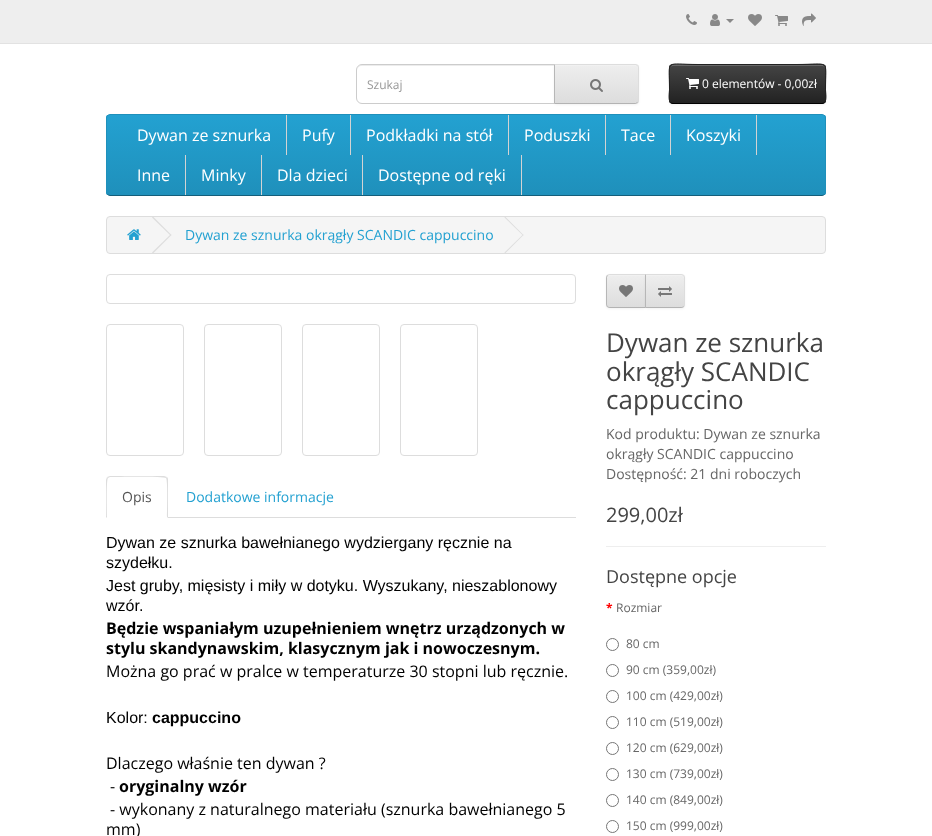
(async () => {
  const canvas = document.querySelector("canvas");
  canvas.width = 932;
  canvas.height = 836;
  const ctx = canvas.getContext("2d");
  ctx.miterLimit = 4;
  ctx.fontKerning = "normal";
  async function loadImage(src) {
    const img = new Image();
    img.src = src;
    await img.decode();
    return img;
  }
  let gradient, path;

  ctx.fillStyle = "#ffffff";
  ctx.fillRect(0, 0, 932, 836);
  ctx.fillStyle = "#eeeeee";
  ctx.fillRect(0, 0, 932, 43);
  ctx.fillStyle = "#e2e2e2";
  ctx.fillRect(0, 43, 932, 1);
  ctx.drawImage(await loadImage("img/1.png"), 686, 14, 11, 11);
  ctx.drawImage(await loadImage("img/2.png"), 710, 14, 10, 12);
  ctx.fillStyle = "#888888";
  path = new Path2D("M726 19H734L730 23Z");
  ctx.fill(path);
  ctx.drawImage(await loadImage("img/3.png"), 748, 14, 14, 12);
  ctx.drawImage(await loadImage("img/4.png"), 775, 15, 13, 11);
  ctx.drawImage(await loadImage("img/5.png"), 802, 13, 14, 13);
  ctx.fillStyle = "#ececec";
  path = new Path2D("M362 66H554V65H361C358 66 357 68 357 71C357 68 359 66 362 66Z");
  ctx.fill(path);
  ctx.beginPath();
  ctx.roundRect(356.5, 64.5, 198, 39, [5.5, 0, 0, 5.5]);
  ctx.strokeStyle = "#cccccc";
  ctx.stroke();
  ctx.fillStyle = "rgba(0, 0, 0, 0.05)";
  ctx.filter = "blur(1px)";
  ctx.beginPath();
  ctx.roundRect(554, 65, 85, 40, 4);
  ctx.fill();
  ctx.filter = "none";
  ctx.fillStyle = "#e7e7e7";
  ctx.beginPath();
  ctx.roundRect(554, 64, 85, 40, [0, 4, 4, 0]);
  ctx.fill();
  ctx.save();
  ctx.beginPath();
  ctx.roundRect(554, 64, 85, 40, [0, 4, 4, 0]);
  ctx.clip();
  gradient = ctx.createLinearGradient(597, 65, 597, 103);
  gradient.addColorStop(0, "#eeeeee");
  gradient.addColorStop(1, "#dddddd");
  ctx.fillStyle = gradient;
  ctx.fillRect(555, 65, 84, 38);
  ctx.restore();
  ctx.fillStyle = "#f1f1f1";
  path = new Path2D("M555 66H635C637 66 638 67 638 69V68C638 66 637 65 635 65H555Z");
  ctx.fill(path);
  ctx.fillStyle = "#dddddd";
  path = new Path2D("M554 64L555 65H636L637 66L638 65L635 64Z");
  ctx.fill(path);
  path = new Path2D("M639 100V68C639 67 638.5 66 638 65L637 66C638 66 638 67 638 68V100C638 101 638 102 637 102L638 103C638.5 102 639 101 639 100Z");
  ctx.fill(path);
  ctx.fillStyle = "#b3b3b3";
  path = new Path2D("M635 104L638 103L637 102L636 103H555L554 104Z");
  ctx.fill(path);
  ctx.fillStyle = "#b7b7b7";
  path = new Path2D("M554 64V104L555 103V65Z");
  ctx.fill(path);
  ctx.drawImage(await loadImage("img/6.png"), 590, 79, 13, 13);
  ctx.fillStyle = "rgba(0, 0, 0, 0.05)";
  ctx.filter = "blur(1px)";
  ctx.beginPath();
  ctx.roundRect(669, 65, 157, 40, 4);
  ctx.fill();
  ctx.filter = "none";
  ctx.fillStyle = "#363636";
  ctx.beginPath();
  ctx.roundRect(669, 64, 157, 40, 4);
  ctx.fill();
  ctx.save();
  ctx.beginPath();
  ctx.roundRect(669, 64, 157, 40, 4);
  ctx.clip();
  gradient = ctx.createLinearGradient(748, 65, 748, 103);
  gradient.addColorStop(0, "#444444");
  gradient.addColorStop(1, "#222222");
  ctx.fillStyle = gradient;
  ctx.fillRect(669, 65, 157, 38);
  ctx.restore();
  ctx.fillStyle = "rgba(255, 255, 255, 0.2)";
  path = new Path2D("M673 66H822C824 66 825 67 825 69C825 67 825 66 823 65H698C690 65 670 60 670 69C670 67 671 66 673 66Z");
  ctx.fill(path);
  path = new Path2D("M824.5 102.5C824 103 823 103.5 822 103.5H673C672 103.5 671 103 670.5 102.5");
  ctx.strokeStyle = "#000000";
  ctx.stroke(path);
  path = new Path2D("M670.5 102.5C668 100 669.5 92 669.5 89.5C669.5 58 664 64.5 698 64.5H797C831 64.5 825.5 58 825.5 89.5C825.5 92 827 100 824.5 102.5");
  ctx.strokeStyle = "#222222";
  ctx.stroke(path);
  ctx.drawImage(await loadImage("img/7.png"), 686, 78, 13, 11);
  ctx.save();
  ctx.beginPath();
  ctx.roundRect(106, 114, 720, 82, 4);
  ctx.clip();
  gradient = ctx.createLinearGradient(466, 115, 466, 195);
  gradient.addColorStop(0, "#23a1d1");
  gradient.addColorStop(1, "#1f90bb");
  ctx.fillStyle = gradient;
  ctx.fillRect(106, 115, 720, 80);
  ctx.restore();
  path = new Path2D("M824.5 194.5C824 195 823 195.5 822 195.5H110C109 195.5 108 195 107.5 194.5");
  ctx.strokeStyle = "#145e7a";
  ctx.stroke(path);
  path = new Path2D("M107.5 194.5C107 194 106.5 193 106.5 192V118C106.5 117 107 116 107.5 115.5C108 115 109 114.5 110 114.5H822C823 114.5 824 115 824.5 115.5C825 116 825.5 117 825.5 118V192C825.5 193 825 194 824.5 194.5");
  ctx.strokeStyle = "#1f90bb";
  ctx.stroke(path);
  for (const [x, y, w, h, color] of [
    [286, 115, 1, 40, "#d3d3d3"],
    [350, 115, 1, 40, "#d3d3d3"],
    [508, 115, 1, 40, "#d3d3d3"],
    [605, 115, 1, 40, "#d3d3d3"],
    [670, 115, 1, 40, "#d3d3d3"],
    [756, 115, 1, 40, "#d3d3d3"],
    [185, 155, 1, 40, "#d3d3d3"],
    [261, 155, 1, 40, "#d3d3d3"],
    [362, 155, 1, 40, "#d3d3d3"],
    [521, 155, 1, 40, "#d3d3d3"],
  ]) {
    ctx.fillStyle = color;
    ctx.fillRect(x, y, w, h);
  }
  ctx.fillStyle = "#f5f5f5";
  ctx.beginPath();
  ctx.roundRect(106.5, 216.5, 719, 37, 3.5);
  ctx.fill();
  ctx.strokeStyle = "#dddddd";
  ctx.stroke();
  ctx.drawImage(await loadImage("img/8.png"), 127, 229, 14, 11);
  ctx.fillStyle = "#dddddd";
  path = new Path2D("M152 217.5L153 216.5L171.5 235L170.5 235.5Z");
  ctx.fill(path);
  path = new Path2D("M152 252.5L170.5 234.5L171.5 235L153 253.5Z");
  ctx.fill(path);
  path = new Path2D("M504.5 217.5L505 216.5L523.5 235L523 235.5Z");
  ctx.fill(path);
  path = new Path2D("M504.5 252.5L523 234.5L523.5 235L505 253.5Z");
  ctx.fill(path);
  ctx.beginPath();
  ctx.roundRect(106.5, 274.5, 469, 29, 3.5);
  ctx.stroke();
  ctx.beginPath();
  ctx.roundRect(106.5, 324.5, 77, 131, 3.5);
  ctx.stroke();
  ctx.beginPath();
  ctx.roundRect(204.5, 324.5, 77, 131, 3.5);
  ctx.stroke();
  ctx.beginPath();
  ctx.roundRect(302.5, 324.5, 77, 131, 3.5);
  ctx.stroke();
  ctx.beginPath();
  ctx.roundRect(400.5, 324.5, 77, 131, 3.5);
  ctx.stroke();
  ctx.fillRect(168, 517, 408, 1);
  path = new Path2D("M110 476L107 477L108 478L110 477C115 477 164 476 166 478L167 477L164 476Z");
  ctx.fill(path);
  path = new Path2D("M168 518V480C168 479 168 478 167 477L166 478C168 480 167 512 167 517ZM106 518L107 517C107 512 106 480 108 478L107 477L106 480Z");
  ctx.fill(path);
  ctx.fillStyle = "rgba(0, 0, 0, 0.05)";
  ctx.filter = "blur(1px)";
  ctx.beginPath();
  ctx.roundRect(606, 275, 40, 34, 4);
  ctx.fill();
  ctx.filter = "none";
  ctx.save();
  ctx.beginPath();
  ctx.roundRect(606, 274, 40, 34, [4, 0, 0, 4]);
  ctx.clip();
  gradient = ctx.createLinearGradient(626, 275, 626, 307);
  gradient.addColorStop(0, "#eeeeee");
  gradient.addColorStop(1, "#dddddd");
  ctx.fillStyle = gradient;
  ctx.fillRect(606, 275, 39, 32);
  ctx.restore();
  ctx.fillStyle = "#f1f1f1";
  path = new Path2D("M610 276H645V275H610C608.5 275 607 276.5 607 278V279C607 277 608 276 610 276Z");
  ctx.fill(path);
  ctx.fillStyle = "#dddddd";
  path = new Path2D("M610 274C609 274 608 274.5 607 275L608 276C608 275 609 275 610 275H645L646 274Z");
  ctx.fill(path);
  ctx.fillStyle = "#b3b3b3";
  path = new Path2D("M646 308L645 307H610C609 307 608 307 608 306L607 307C608 307.5 609 308 610 308Z");
  ctx.fill(path);
  ctx.fillStyle = "#b7b7b7";
  path = new Path2D("M606 278V304C606 305 606.5 306 607 307L608 306C607 306 607 305 607 304V278C607 277 607 276 608 276L607 275C606.5 276 606 277 606 278Z");
  ctx.fill(path);
  ctx.drawImage(await loadImage("img/9.png"), 619, 285, 14, 12);
  ctx.fillStyle = "rgba(0, 0, 0, 0.05)";
  ctx.filter = "blur(1px)";
  ctx.beginPath();
  ctx.roundRect(645, 275, 40, 34, 4);
  ctx.fill();
  ctx.filter = "none";
  ctx.save();
  ctx.beginPath();
  ctx.roundRect(645, 274, 40, 34, [0, 4, 4, 0]);
  ctx.clip();
  gradient = ctx.createLinearGradient(665, 275, 665, 307);
  gradient.addColorStop(0, "#eeeeee");
  gradient.addColorStop(1, "#dddddd");
  ctx.fillStyle = gradient;
  ctx.fillRect(646, 275, 39, 32);
  ctx.restore();
  ctx.fillStyle = "#f1f1f1";
  path = new Path2D("M646 276H681C683 276 684 277 684 279V278C684 276.5 682.5 275 681 275H646Z");
  ctx.fill(path);
  ctx.fillStyle = "#dddddd";
  path = new Path2D("M645 274L646 275H681C682 275 683 275 683 276L684 275C683 274.5 682 274 681 274Z");
  ctx.fill(path);
  path = new Path2D("M685 304V278C685 277 684.5 276 684 275L683 276C684 276 684 277 684 278V304C684 305 684 306 683 306L684 307C684.5 306 685 305 685 304Z");
  ctx.fill(path);
  ctx.fillStyle = "#b3b3b3";
  path = new Path2D("M681 308C682 308 683 307.5 684 307L683 306C683 307 682 307 681 307H646L645 308Z");
  ctx.fill(path);
  ctx.fillStyle = "#b7b7b7";
  path = new Path2D("M645 274V308L646 307V275Z");
  ctx.fill(path);
  ctx.drawImage(await loadImage("img/10.png"), 658, 286, 14, 11);
  ctx.fillStyle = "#eeeeee";
  ctx.fillRect(606, 546, 220, 1);
  ctx.beginPath();
  ctx.arc(612.5, 644.5, 6, 0, Math.PI * 2);
  ctx.strokeStyle = "#767676";
  ctx.stroke();
  ctx.beginPath();
  ctx.arc(612.5, 670.5, 6, 0, Math.PI * 2);
  ctx.stroke();
  ctx.beginPath();
  ctx.arc(612.5, 696.5, 6, 0, Math.PI * 2);
  ctx.stroke();
  ctx.beginPath();
  ctx.arc(612.5, 722.5, 6, 0, Math.PI * 2);
  ctx.stroke();
  ctx.beginPath();
  ctx.arc(612.5, 748.5, 6, 0, Math.PI * 2);
  ctx.stroke();
  ctx.beginPath();
  ctx.arc(612.5, 774.5, 6, 0, Math.PI * 2);
  ctx.stroke();
  ctx.beginPath();
  ctx.arc(612.5, 800.5, 6, 0, Math.PI * 2);
  ctx.stroke();
  ctx.beginPath();
  ctx.arc(612.5, 826.5, 6, 0, Math.PI * 2);
  ctx.stroke();
  ctx.font = "12px Open Sans";
  ctx.fillStyle = "#999999";
  ctx.fillText("Szukaj", 367, 89);
  ctx.fillStyle = "#ffffff";
  ctx.fillText("0 elementów - 0,00zł", 702, 88);
  ctx.font = "16px Open Sans";
  for (const [text, x, y] of [
    ["Dywan ze sznurka", 137, 141],
    ["Pufy", 302, 141],
    ["Podkładki na stół", 366, 141],
    ["Poduszki", 524, 141],
    ["Tace", 621, 141],
    ["Koszyki", 686, 141],
    ["Inne", 137, 181],
    ["Minky", 201, 181],
    ["Dla dzieci", 277, 181],
    ["Dostępne od ręki", 378, 181],
  ]) {
    ctx.fillText(text, x, y);
  }
  ctx.font = "14px Open Sans";
  ctx.fillStyle = "#23a1d1";
  ctx.fillText("Dywan ze sznurka okrągły SCANDIC cappuccino", 185, 240);
  ctx.fillStyle = "#555555";
  ctx.fillText("Opis", 122, 502);
  ctx.fillStyle = "#23a1d1";
  ctx.fillText("Dodatkowe informacje", 186, 502);
  ctx.font = "16px Liberation Sans";
  ctx.fillStyle = "#000000";
  for (const [text, x, y] of [
    ["Dywan ze sznurka bawełnianego wydziergany ręcznie na", 106, 548],
    ["szydełku.", 106, 568],
    ["Jest gruby, mięsisty i miły w dotyku. Wyszukany, nieszablonowy", 106, 591],
    ["wzór.", 106, 611],
  ]) {
    ctx.fillText(text, x, y);
  }
  ctx.font = "bold 16px Open Sans";
  ctx.fillText("Będzie wspaniałym uzupełnieniem wnętrz urządzonych w", 106, 634);
  ctx.fillText("stylu skandynawskim, klasycznym jak i nowoczesnym.", 106, 654);
  ctx.font = "16px Open Sans";
  ctx.fillText("Można go prać w pralce w temperaturze 30 stopni lub ręcznie.", 106, 677);
  ctx.font = "16px Liberation Sans";
  ctx.fillText("Kolor:", 106, 723);
  ctx.font = "bold 16px Liberation Sans";
  ctx.fillText("cappuccino", 152, 723);
  ctx.font = "16px Open Sans";
  ctx.fillText("Dlaczego właśnie ten dywan ?", 106, 769);
  ctx.fillText("-", 110, 792);
  ctx.font = "bold 16px Open Sans";
  ctx.fillText("oryginalny wzór", 119, 792);
  ctx.font = "16px Open Sans";
  ctx.fillText("- wykonany z naturalnego materiału (sznurka bawełnianego 5", 110, 815);
  ctx.fillText("mm)", 106, 835);
  ctx.font = "26px Open Sans";
  ctx.fillStyle = "#444444";
  for (const [text, x, y] of [
    ["Dywan ze sznurka", 606, 352],
    ["okrągły SCANDIC", 606, 381],
    ["cappuccino", 606, 409],
  ]) {
    ctx.fillText(text, x, y);
  }
  ctx.font = "14px Open Sans";
  ctx.fillStyle = "#666666";
  for (const [text, x, y] of [
    ["Kod produktu: Dywan ze sznurka", 606, 439],
    ["okrągły SCANDIC cappuccino", 606, 459],
    ["Dostępność: 21 dni roboczych", 606, 479],
  ]) {
    ctx.fillText(text, x, y);
  }
  ctx.font = "20px Open Sans";
  ctx.fillStyle = "#444444";
  ctx.fillText("299,00zł", 606, 522);
  ctx.font = "18px Open Sans";
  ctx.fillText("Dostępne opcje", 606, 583);
  ctx.font = "bold 12px Open Sans";
  ctx.fillStyle = "#ff0000";
  ctx.fillText("*", 606, 612);
  ctx.font = "12px Open Sans";
  ctx.fillStyle = "#666666";
  for (const [text, x, y] of [
    ["Rozmiar", 616, 612],
    ["80 cm", 626, 648],
    ["90 cm (359,00zł)", 626, 674],
    ["100 cm (429,00zł)", 626, 700],
    ["110 cm (519,00zł)", 626, 726],
    ["120 cm (629,00zł)", 626, 752],
    ["130 cm (739,00zł)", 626, 778],
    ["140 cm (849,00zł)", 626, 804],
    ["150 cm (999,00zł)", 626, 830],
  ]) {
    ctx.fillText(text, x, y);
  }
})();
